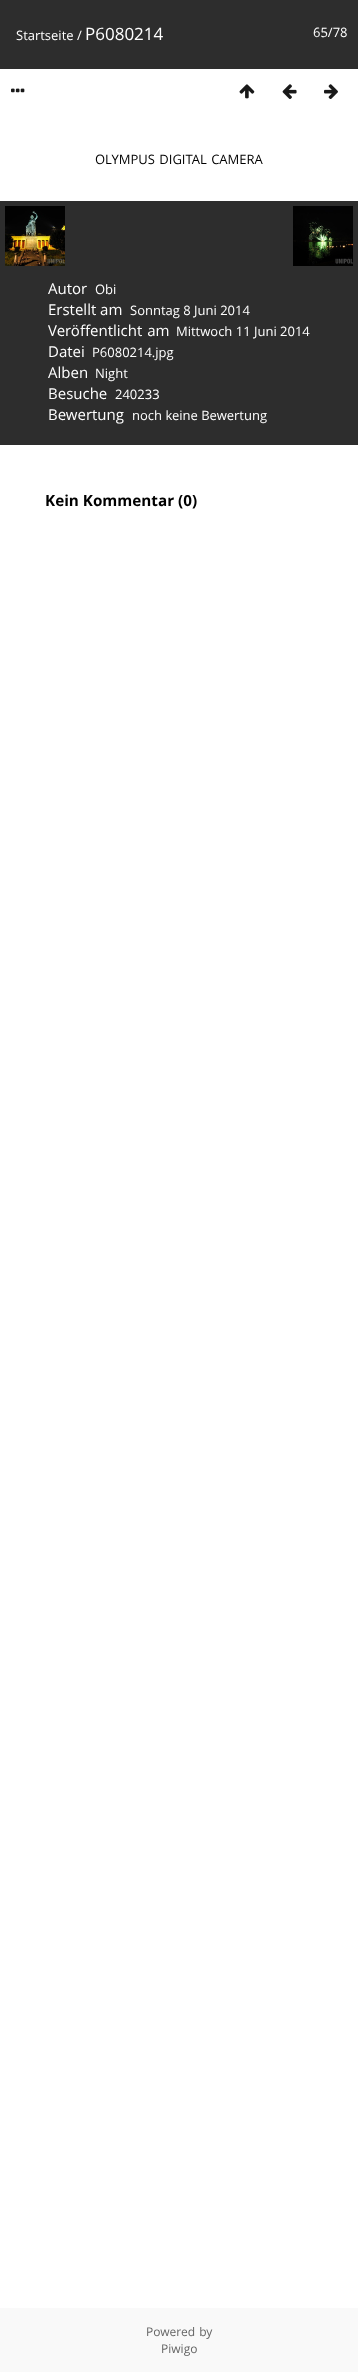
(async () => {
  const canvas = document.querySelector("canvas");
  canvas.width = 358;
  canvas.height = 2372;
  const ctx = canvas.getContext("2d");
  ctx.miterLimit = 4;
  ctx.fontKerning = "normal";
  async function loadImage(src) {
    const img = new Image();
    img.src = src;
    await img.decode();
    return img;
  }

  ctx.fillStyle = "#ffffff";
  ctx.fillRect(0, 0, 358, 2372);
  ctx.fillStyle = "#2d2d2d";
  ctx.fillRect(0, 0, 358, 69);
  ctx.drawImage(await loadImage("img/1.png"), 11, 88, 14, 5);
  ctx.drawImage(await loadImage("img/2.png"), 239, 84, 16, 15);
  ctx.drawImage(await loadImage("img/3.png"), 282, 84, 15, 15);
  ctx.drawImage(await loadImage("img/4.png"), 324, 84, 14, 15);
  ctx.fillRect(0, 201, 358, 244);
  ctx.drawImage(await loadImage("img/5.png"), 5, 206, 60, 60);
  ctx.drawImage(await loadImage("img/6.png"), 293, 206, 60, 60);
  ctx.fillStyle = "#f9f9f9";
  ctx.fillRect(0, 2308, 358, 64);
  ctx.font = "13px Open Sans";
  ctx.fillStyle = "#ffffff";
  ctx.fillText("Startseite /", 16, 40);
  ctx.font = "17px Open Sans";
  ctx.fillText("P6080214", 85, 40);
  ctx.font = "13px Open Sans";
  ctx.fillText("65/78", 313, 37);
  ctx.wordSpacing = "1px";
  ctx.fillStyle = "#000000";
  ctx.fillText("OLYMPUS DIGITAL CAMERA", 95, 164);
  ctx.wordSpacing = "0px";
  ctx.font = "15px Open Sans";
  ctx.fillStyle = "#ffffff";
  ctx.fillText("Autor", 48, 294);
  ctx.font = "13px Open Sans";
  ctx.fillText("Obi", 95, 294);
  ctx.font = "15px Open Sans";
  ctx.fillText("Erstellt am", 48, 315);
  ctx.font = "13px Open Sans";
  ctx.fillText("Sonntag 8 Juni 2014", 130, 315);
  ctx.wordSpacing = "1px";
  ctx.font = "15px Open Sans";
  ctx.fillText("Veröffentlicht am", 48, 336);
  ctx.wordSpacing = "0px";
  ctx.font = "13px Open Sans";
  ctx.fillText("Mittwoch 11 Juni 2014", 176, 336);
  ctx.font = "15px Open Sans";
  ctx.fillText("Datei", 48, 357);
  ctx.font = "13px Open Sans";
  ctx.fillText("P6080214.jpg", 92, 357);
  ctx.font = "15px Open Sans";
  ctx.fillText("Alben", 48, 378);
  ctx.font = "13px Open Sans";
  ctx.fillText("Night", 95, 378);
  ctx.font = "15px Open Sans";
  ctx.fillText("Besuche", 48, 399);
  ctx.font = "13px Open Sans";
  ctx.fillText("240233", 115, 399);
  ctx.font = "15px Open Sans";
  ctx.fillText("Bewertung", 48, 420);
  ctx.font = "13px Open Sans";
  ctx.fillText("noch keine Bewertung", 132, 420);
  ctx.font = "bold 15.25px Open Sans";
  ctx.fillStyle = "#000000";
  ctx.fillText("Kein Kommentar (0)", 45, 506);
  ctx.wordSpacing = "1px";
  ctx.font = "12px Open Sans";
  ctx.fillStyle = "#666666";
  ctx.fillText("Powered by", 146, 2336);
  ctx.wordSpacing = "0px";
  ctx.fillText("Piwigo", 161, 2353);
})();
